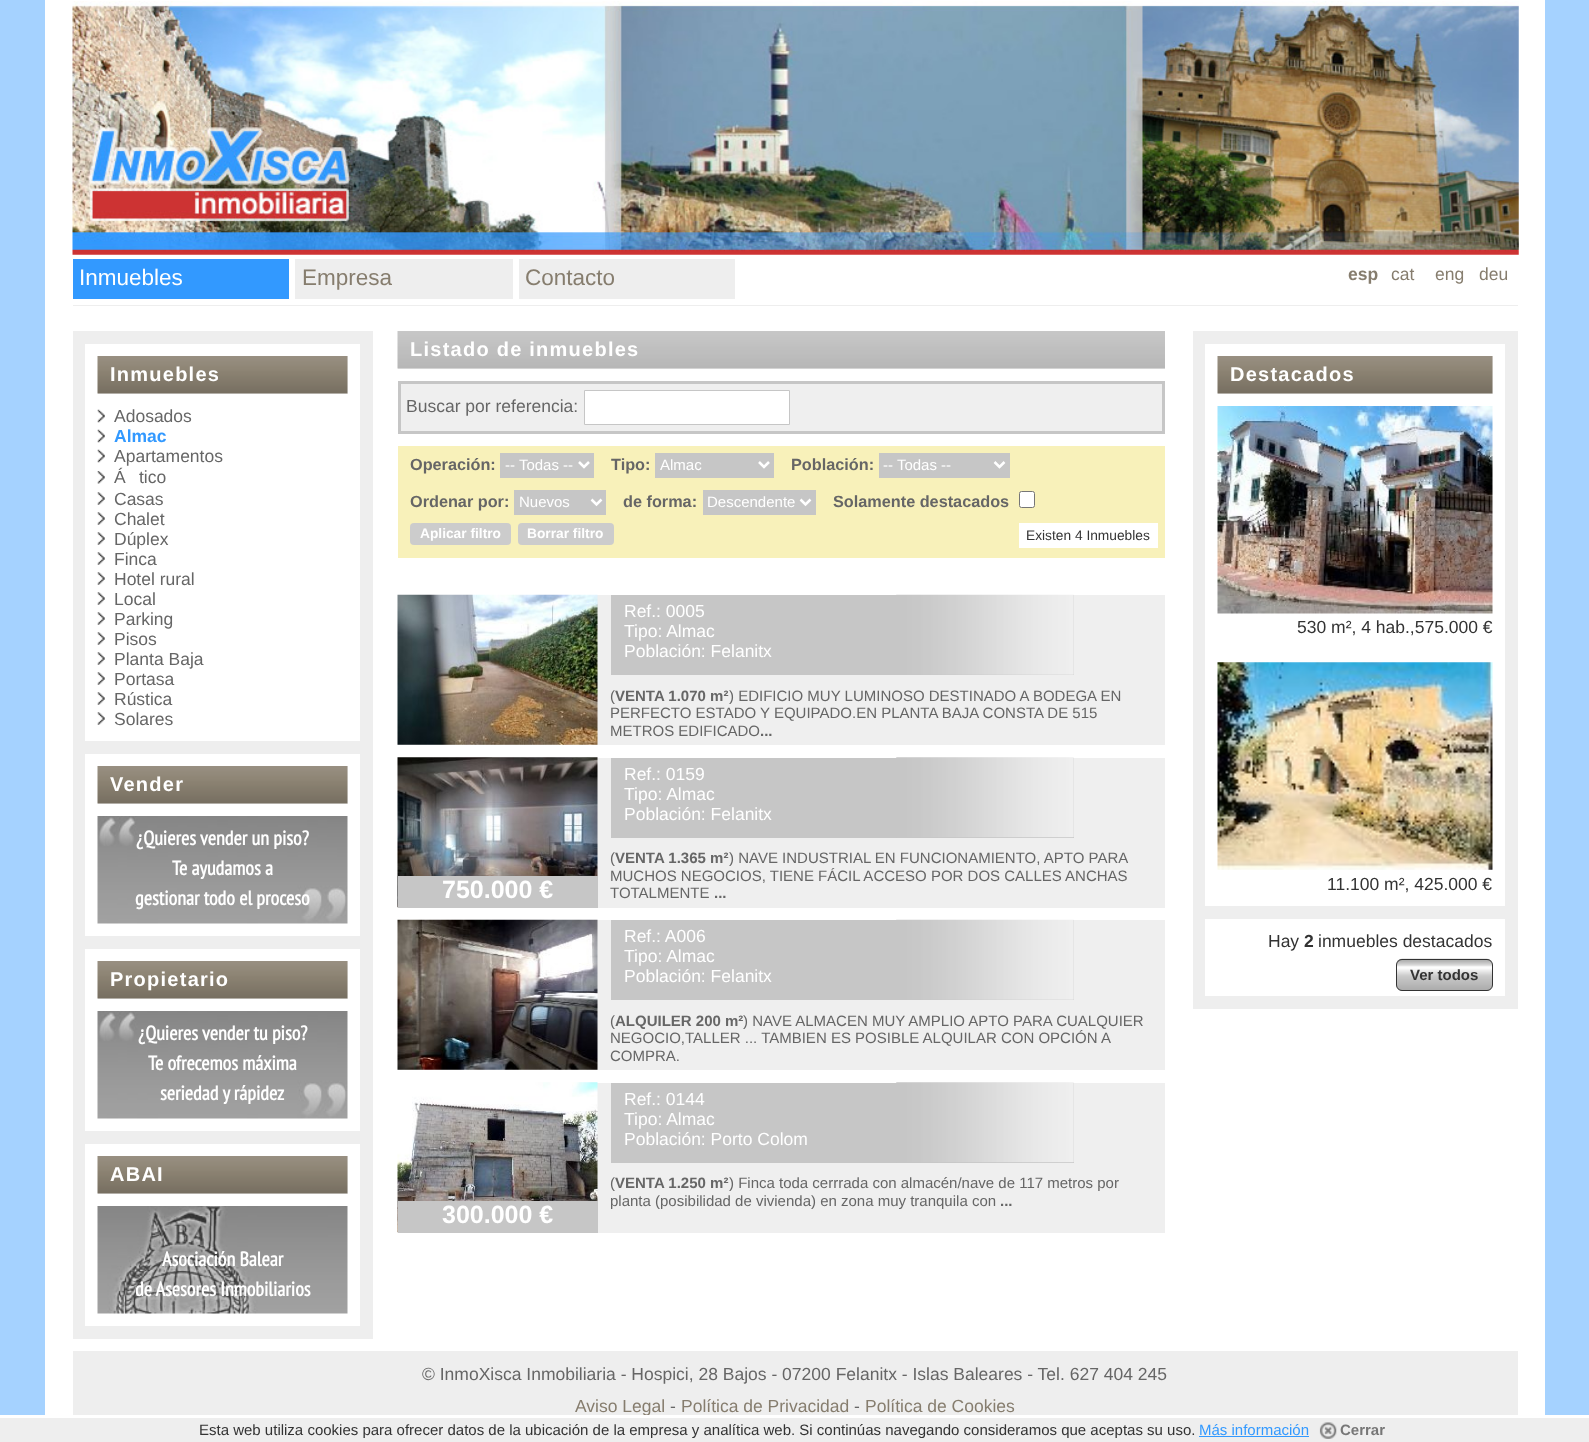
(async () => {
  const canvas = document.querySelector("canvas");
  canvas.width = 1589;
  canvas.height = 1442;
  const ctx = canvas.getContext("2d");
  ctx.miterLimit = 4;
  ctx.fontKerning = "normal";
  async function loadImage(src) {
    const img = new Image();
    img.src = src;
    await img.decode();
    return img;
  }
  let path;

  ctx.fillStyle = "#a5d2ff";
  ctx.fillRect(0, 0, 1589, 1442);
  ctx.fillStyle = "#ffffff";
  ctx.fillRect(45, 0, 1500, 1415);
  ctx.drawImage(await loadImage("img/1.png"), 72, 1, 1447, 254);
  for (const [x, y, w, h, color] of [
    [73, 259, 216, 40, "#3299ff"],
    [295, 259, 218, 40, "#eeeeee"],
    [519, 259, 216, 40, "#eeeeee"],
    [73, 305, 1445, 1, "#eeeeee"],
    [73, 331, 300, 1008, "#eeeeee"],
    [85, 344, 275, 397, "#ffffff"],
    [98, 356, 250, 38, "#eeeeee"],
  ]) {
    ctx.fillStyle = color;
    ctx.fillRect(x, y, w, h);
  }
  ctx.drawImage(await loadImage("img/2.png"), 97, 356, 251, 38);
  ctx.drawImage(await loadImage("img/3.png"), 97, 409, 8, 14);
  ctx.drawImage(await loadImage("img/3.png"), 97, 429, 8, 14);
  ctx.drawImage(await loadImage("img/3.png"), 97, 449, 8, 14);
  ctx.drawImage(await loadImage("img/4.png"), 97, 471, 8, 13);
  ctx.drawImage(await loadImage("img/5.png"), 97, 492, 8, 13);
  ctx.drawImage(await loadImage("img/5.png"), 97, 512, 8, 13);
  ctx.drawImage(await loadImage("img/6.png"), 97, 532, 8, 13);
  ctx.drawImage(await loadImage("img/5.png"), 97, 552, 8, 13);
  ctx.drawImage(await loadImage("img/5.png"), 97, 572, 8, 13);
  ctx.drawImage(await loadImage("img/5.png"), 97, 592, 8, 13);
  ctx.drawImage(await loadImage("img/5.png"), 97, 612, 8, 13);
  ctx.drawImage(await loadImage("img/5.png"), 97, 632, 8, 13);
  ctx.drawImage(await loadImage("img/5.png"), 97, 652, 8, 13);
  ctx.drawImage(await loadImage("img/5.png"), 97, 672, 8, 13);
  ctx.drawImage(await loadImage("img/5.png"), 97, 692, 8, 13);
  ctx.drawImage(await loadImage("img/5.png"), 97, 712, 8, 13);
  ctx.fillStyle = "#ffffff";
  ctx.fillRect(85, 754, 275, 182);
  ctx.fillStyle = "#eeeeee";
  ctx.fillRect(98, 766, 250, 38);
  ctx.drawImage(await loadImage("img/7.png"), 97, 766, 251, 38);
  ctx.drawImage(await loadImage("img/8.png"), 97, 816, 251, 108);
  ctx.fillStyle = "#ffffff";
  ctx.fillRect(85, 949, 275, 182);
  ctx.fillStyle = "#eeeeee";
  ctx.fillRect(98, 961, 250, 38);
  ctx.drawImage(await loadImage("img/9.png"), 97, 961, 251, 38);
  ctx.drawImage(await loadImage("img/8.png"), 97, 1011, 251, 108);
  ctx.fillStyle = "#ffffff";
  ctx.fillRect(85, 1144, 275, 182);
  ctx.fillStyle = "#eeeeee";
  ctx.fillRect(98, 1156, 250, 38);
  ctx.drawImage(await loadImage("img/10.png"), 97, 1156, 251, 38);
  ctx.drawImage(await loadImage("img/11.png"), 97, 1206, 251, 108);
  ctx.fillRect(398, 368, 767, 1);
  ctx.drawImage(await loadImage("img/12.png"), 397, 331, 768, 38);
  ctx.fillStyle = "#efefef";
  ctx.beginPath();
  ctx.rect(399.5, 382.5, 764, 50);
  ctx.fill();
  ctx.strokeStyle = "#c6c6c6";
  ctx.lineWidth = 3;
  ctx.stroke();
  ctx.fillStyle = "#ffffff";
  ctx.beginPath();
  ctx.rect(584.5, 390.5, 205, 34);
  ctx.fill();
  ctx.lineWidth = 1;
  ctx.stroke();
  ctx.fillStyle = "#f8f1ba";
  ctx.fillRect(398, 446, 767, 112);
  ctx.fillStyle = "#c6c6c6";
  ctx.fillRect(500, 453, 94, 25);
  path = new Path2D("M579 462L584 467L589 462");
  ctx.strokeStyle = "#ffffff";
  ctx.lineWidth = 2.5;
  ctx.stroke(path);
  ctx.fillRect(655, 453, 119, 25);
  path = new Path2D("M759 462L764 467L769 462");
  ctx.stroke(path);
  ctx.fillRect(879, 453, 131, 25);
  path = new Path2D("M994.5 462L999.5 467L1004.5 462");
  ctx.stroke(path);
  ctx.fillRect(514, 490, 92, 25);
  path = new Path2D("M591.5 499.5L596.5 504.5L601.5 499.5");
  ctx.stroke(path);
  ctx.fillRect(703, 490, 113, 25);
  path = new Path2D("M800.5 499.5L805.5 504.5L810.5 499.5");
  ctx.stroke(path);
  ctx.fillStyle = "#ffffff";
  ctx.beginPath();
  ctx.roundRect(1019.5, 491.5, 15, 16, 2);
  ctx.fill();
  ctx.strokeStyle = "#767676";
  ctx.lineWidth = 1;
  ctx.stroke();
  ctx.fillStyle = "#cccccc";
  ctx.beginPath();
  ctx.roundRect(410, 523, 101, 22, 4);
  ctx.fill();
  ctx.beginPath();
  ctx.roundRect(518, 523, 96, 22, 4);
  ctx.fill();
  ctx.fillStyle = "#ffffff";
  ctx.fillRect(1019, 523, 139, 25);
  ctx.fillStyle = "#efefef";
  ctx.fillRect(398, 595, 767, 150);
  ctx.drawImage(await loadImage("img/13.png"), 397, 594, 201, 151);
  ctx.fillStyle = "#c6c6c6";
  ctx.fillRect(611, 595, 463, 80);
  ctx.drawImage(await loadImage("img/14.png"), 896, 594, 178, 81);
  ctx.fillStyle = "#efefef";
  ctx.fillRect(597, 758, 568, 150);
  ctx.fillStyle = "#c6c6c6";
  ctx.fillRect(611, 758, 463, 80);
  ctx.drawImage(await loadImage("img/15.png"), 896, 757, 178, 81);
  ctx.drawImage(await loadImage("img/16.png"), 397, 757, 201, 151);
  ctx.fillRect(398, 876, 200, 32);
  ctx.fillStyle = "#efefef";
  ctx.fillRect(398, 920, 767, 150);
  ctx.drawImage(await loadImage("img/17.png"), 397, 919, 201, 151);
  ctx.fillStyle = "#c6c6c6";
  ctx.fillRect(611, 920, 463, 80);
  ctx.drawImage(await loadImage("img/14.png"), 896, 919, 178, 81);
  ctx.fillStyle = "#efefef";
  ctx.fillRect(597, 1083, 568, 150);
  ctx.fillStyle = "#c6c6c6";
  ctx.fillRect(611, 1083, 463, 80);
  ctx.drawImage(await loadImage("img/15.png"), 896, 1082, 178, 81);
  ctx.drawImage(await loadImage("img/18.png"), 397, 1082, 201, 151);
  for (const [x, y, w, h, color] of [
    [398, 1201, 200, 32, "#c6c6c6"],
    [1193, 331, 325, 678, "#eeeeee"],
    [1205, 344, 300, 562, "#ffffff"],
    [1218, 356, 275, 38, "#eeeeee"],
  ]) {
    ctx.fillStyle = color;
    ctx.fillRect(x, y, w, h);
  }
  ctx.drawImage(await loadImage("img/19.png"), 1217, 356, 276, 38);
  ctx.drawImage(await loadImage("img/20.png"), 1217, 406, 276, 208);
  ctx.drawImage(await loadImage("img/21.png"), 1217, 662, 276, 208);
  ctx.fillStyle = "#ffffff";
  ctx.fillRect(1205, 919, 300, 77);
  ctx.drawImage(await loadImage("img/22.png"), 1396, 958, 97, 33);
  ctx.beginPath();
  ctx.roundRect(1396.5, 959.5, 96, 31, 5.5);
  ctx.strokeStyle = "#333333";
  ctx.stroke();
  for (const [x, y, w, h, color] of [
    [73, 1351, 1445, 64, "#eeeeee"],
    [0, 1418, 1589, 24, "#eeeeee"],
    [1199, 1436, 110, 1, "#3299ff"],
  ]) {
    ctx.fillStyle = color;
    ctx.fillRect(x, y, w, h);
  }
  ctx.drawImage(await loadImage("img/23.png"), 1319, 1422, 18, 17);
  ctx.font = "22.5px Liberation Sans";
  ctx.fillStyle = "#ffffff";
  ctx.fillText("Inmuebles", 79, 285);
  ctx.fillStyle = "#867d6e";
  ctx.fillText("Empresa", 302, 285);
  ctx.fillText("Contacto", 525, 285);
  ctx.font = "bold 17.5px Liberation Sans";
  ctx.fillText("esp", 1348, 280);
  ctx.font = "17.5px Liberation Sans";
  for (const [text, x, y] of [
    ["cat", 1391, 280],
    ["eng", 1435, 280],
    ["deu", 1479, 280],
  ]) {
    ctx.fillText(text, x, y);
  }
  ctx.letterSpacing = "1.25px";
  ctx.font = "bold 20px Liberation Sans";
  ctx.fillStyle = "#ffffff";
  ctx.fillText("Inmuebles", 110, 381);
  ctx.letterSpacing = "0px";
  ctx.font = "17.5px Liberation Sans";
  ctx.fillStyle = "#666666";
  ctx.fillText("Adosados", 114, 422);
  ctx.font = "bold 17.5px Liberation Sans";
  ctx.fillStyle = "#3299ff";
  ctx.fillText("Almac", 114, 442);
  ctx.font = "17.5px Liberation Sans";
  ctx.fillStyle = "#666666";
  for (const [text, x, y] of [
    ["Apartamentos", 114, 462],
    ["Á", 114, 483],
    ["tico", 139, 483],
    ["Casas", 114, 505],
    ["Chalet", 114, 525],
    ["Dúplex", 114, 545],
    ["Finca", 114, 565],
    ["Hotel rural", 114, 585],
    ["Local", 114, 605],
    ["Parking", 114, 625],
    ["Pisos", 114, 645],
    ["Planta Baja", 114, 665],
    ["Portasa", 114, 685],
    ["Rústica", 114, 705],
    ["Solares", 114, 725],
  ]) {
    ctx.fillText(text, x, y);
  }
  ctx.letterSpacing = "1.25px";
  ctx.font = "bold 20px Liberation Sans";
  ctx.fillStyle = "#ffffff";
  ctx.fillText("Vender", 110, 791);
  ctx.letterSpacing = "0px";
  ctx.font = "bold 20px PT Sans Narrow";
  for (const [text, x, y] of [
    ["¿Quieres vender un piso?", 136, 845],
    ["Te ayudamos a", 172, 875],
    ["gestionar todo el proceso", 135, 905],
  ]) {
    ctx.fillText(text, x, y);
  }
  ctx.letterSpacing = "1.25px";
  ctx.font = "bold 20px Liberation Sans";
  ctx.fillText("Propietario", 110, 986);
  ctx.letterSpacing = "0px";
  ctx.font = "bold 20px PT Sans Narrow";
  for (const [text, x, y] of [
    ["¿Quieres vender tu piso?", 138, 1040],
    ["Te ofrecemos máxima", 148, 1070],
    ["seriedad y rápidez", 160, 1100],
  ]) {
    ctx.fillText(text, x, y);
  }
  ctx.letterSpacing = "1.25px";
  ctx.font = "bold 20px Liberation Sans";
  ctx.fillText("ABAI", 110, 1181);
  ctx.letterSpacing = "0px";
  ctx.font = "bold 20px PT Sans Narrow";
  ctx.fillText("Asociación Balear", 162, 1266);
  ctx.fillText("de Asesores Inmobiliarios", 135, 1296);
  ctx.letterSpacing = "1.25px";
  ctx.font = "bold 20px Liberation Sans";
  ctx.fillText("Listado de inmuebles", 410, 356);
  ctx.letterSpacing = "0px";
  ctx.font = "17.5px Liberation Sans";
  ctx.fillStyle = "#666666";
  ctx.fillText("Buscar por referencia:", 406, 412);
  ctx.font = "bold 16.25px Liberation Sans";
  ctx.fillText("Operación:", 410, 470);
  ctx.font = "15px Liberation Sans";
  ctx.fillStyle = "#ffffff";
  ctx.fillText("-- Todas --", 505, 470);
  ctx.font = "bold 16.25px Liberation Sans";
  ctx.fillStyle = "#666666";
  ctx.fillText("Tipo:", 611, 470);
  ctx.font = "15px Liberation Sans";
  ctx.fillStyle = "#ffffff";
  ctx.fillText("Almac", 660, 470);
  ctx.font = "bold 16.25px Liberation Sans";
  ctx.fillStyle = "#666666";
  ctx.fillText("Población:", 791, 470);
  ctx.font = "15px Liberation Sans";
  ctx.fillStyle = "#ffffff";
  ctx.fillText("-- Todas --", 883, 470);
  ctx.font = "bold 16.25px Liberation Sans";
  ctx.fillStyle = "#666666";
  ctx.fillText("Ordenar por:", 410, 507);
  ctx.font = "15px Liberation Sans";
  ctx.fillStyle = "#ffffff";
  ctx.fillText("Nuevos", 519, 507);
  ctx.font = "bold 16.25px Liberation Sans";
  ctx.fillStyle = "#666666";
  ctx.fillText("de forma:", 623, 507);
  ctx.font = "15px Liberation Sans";
  ctx.fillStyle = "#ffffff";
  ctx.fillText("Descendente", 707, 507);
  ctx.font = "bold 16.25px Liberation Sans";
  ctx.fillStyle = "#666666";
  ctx.fillText("Solamente destacados", 833, 507);
  ctx.font = "bold 13.75px Liberation Sans";
  ctx.fillStyle = "#ffffff";
  ctx.fillText("Aplicar filtro", 420, 538);
  ctx.fillText("Borrar filtro", 527, 538);
  ctx.font = "13.75px Liberation Sans";
  ctx.fillStyle = "#333333";
  ctx.fillText("Existen 4 Inmuebles", 1026, 540);
  ctx.font = "17.5px Liberation Sans";
  ctx.fillStyle = "#ffffff";
  for (const [text, x, y] of [
    ["Ref.: 0005", 624, 617],
    ["Tipo: Almac", 624, 637],
    ["Población: Felanitx", 624, 657],
  ]) {
    ctx.fillText(text, x, y);
  }
  ctx.font = "15px Liberation Sans";
  ctx.fillStyle = "#666666";
  ctx.fillText("(", 610, 701);
  ctx.font = "bold 15px Liberation Sans";
  ctx.fillText("VENTA 1.070 m²", 615, 701);
  ctx.font = "15px Liberation Sans";
  for (const [text, x, y] of [
    [") EDIFICIO MUY LUMINOSO DESTINADO A BODEGA EN", 729, 701],
    ["PERFECTO ESTADO Y EQUIPADO.EN PLANTA BAJA CONSTA DE 515", 610, 718],
    ["METROS EDIFICADO", 610, 736],
  ]) {
    ctx.fillText(text, x, y);
  }
  ctx.font = "bold 15px Liberation Sans";
  ctx.fillText("...", 760, 736);
  ctx.font = "17.5px Liberation Sans";
  ctx.fillStyle = "#ffffff";
  for (const [text, x, y] of [
    ["Ref.: 0159", 624, 780],
    ["Tipo: Almac", 624, 800],
    ["Población: Felanitx", 624, 820],
  ]) {
    ctx.fillText(text, x, y);
  }
  ctx.font = "bold 25px Liberation Sans";
  ctx.fillText("750.000 €", 442, 898);
  ctx.font = "15px Liberation Sans";
  ctx.fillStyle = "#666666";
  ctx.fillText("(", 610, 863);
  ctx.font = "bold 15px Liberation Sans";
  ctx.fillText("VENTA 1.365 m²", 615, 863);
  ctx.font = "15px Liberation Sans";
  for (const [text, x, y] of [
    [") NAVE INDUSTRIAL EN FUNCIONAMIENTO, APTO PARA", 729, 863],
    ["MUCHOS NEGOCIOS, TIENE FÁCIL ACCESO POR DOS CALLES ANCHAS", 610, 881],
    ["TOTALMENTE", 610, 898],
  ]) {
    ctx.fillText(text, x, y);
  }
  ctx.font = "bold 15px Liberation Sans";
  ctx.fillText("...", 714, 898);
  ctx.font = "17.5px Liberation Sans";
  ctx.fillStyle = "#ffffff";
  for (const [text, x, y] of [
    ["Ref.: A006", 624, 942],
    ["Tipo: Almac", 624, 962],
    ["Población: Felanitx", 624, 982],
  ]) {
    ctx.fillText(text, x, y);
  }
  ctx.font = "15px Liberation Sans";
  ctx.fillStyle = "#666666";
  ctx.fillText("(", 610, 1026);
  ctx.font = "bold 15px Liberation Sans";
  ctx.fillText("ALQUILER 200 m²", 615, 1026);
  ctx.font = "15px Liberation Sans";
  for (const [text, x, y] of [
    [") NAVE ALMACEN MUY AMPLIO APTO PARA CUALQUIER", 743, 1026],
    ["NEGOCIO,TALLER ... TAMBIEN ES POSIBLE ALQUILAR CON OPCIÓN A", 610, 1043],
    ["COMPRA.", 610, 1061],
  ]) {
    ctx.fillText(text, x, y);
  }
  ctx.font = "17.5px Liberation Sans";
  ctx.fillStyle = "#ffffff";
  for (const [text, x, y] of [
    ["Ref.: 0144", 624, 1105],
    ["Tipo: Almac", 624, 1125],
    ["Población: Porto Colom", 624, 1145],
  ]) {
    ctx.fillText(text, x, y);
  }
  ctx.font = "15px Liberation Sans";
  ctx.fillStyle = "#666666";
  ctx.fillText("(", 610, 1188);
  ctx.font = "bold 15px Liberation Sans";
  ctx.fillText("VENTA 1.250 m²", 615, 1188);
  ctx.font = "15px Liberation Sans";
  ctx.fillText(") Finca toda cerrrada con almacén/nave de 117 metros por", 729, 1188);
  ctx.fillText("planta (posibilidad de vivienda) en zona muy tranquila con", 610, 1206);
  ctx.font = "bold 15px Liberation Sans";
  ctx.fillText("...", 1000, 1206);
  ctx.font = "bold 25px Liberation Sans";
  ctx.fillStyle = "#ffffff";
  ctx.fillText("300.000 €", 442, 1223);
  ctx.letterSpacing = "1.25px";
  ctx.font = "bold 20px Liberation Sans";
  ctx.fillText("Destacados", 1230, 381);
  ctx.letterSpacing = "0px";
  ctx.font = "17.5px Liberation Sans";
  ctx.fillStyle = "#333333";
  for (const [text, x, y] of [
    ["530 m², 4 hab.,575.000 €", 1297, 633],
    ["11.100 m², 425.000 €", 1327, 890],
    ["Hay", 1268, 947],
  ]) {
    ctx.fillText(text, x, y);
  }
  ctx.font = "bold 17.5px Liberation Sans";
  ctx.fillText("2", 1304, 947);
  ctx.font = "17.5px Liberation Sans";
  ctx.fillText("inmuebles destacados", 1318, 947);
  ctx.font = "bold 15px Liberation Sans";
  ctx.fillText("Ver todos", 1410, 980);
  ctx.font = "17.5px Liberation Sans";
  ctx.fillStyle = "#666666";
  ctx.fillText("© InmoXisca Inmobiliaria - Hospici, 28 Bajos - 07200 Felanitx - Islas Baleares - Tel. 627 404 245", 422, 1380);
  ctx.fillStyle = "#867d6e";
  ctx.fillText("Aviso Legal", 575, 1412);
  ctx.fillStyle = "#666666";
  ctx.fillText("-", 670, 1412);
  ctx.fillStyle = "#867d6e";
  ctx.fillText("Política de Privacidad", 681, 1412);
  ctx.fillStyle = "#666666";
  ctx.fillText("-", 854, 1412);
  ctx.fillStyle = "#867d6e";
  ctx.fillText("Política de Cookies", 865, 1412);
  ctx.fillStyle = "#ffffff";
  ctx.fillRect(0, 1415, 1589, 3);
  ctx.font = "15px Liberation Sans";
  ctx.fillStyle = "#333333";
  ctx.fillText("Esta web utiliza cookies para ofrecer datos de la ubicación de la empresa y analítica web. Si continúas navegando consideramos que aceptas su uso.", 199, 1435);
  ctx.fillStyle = "#3299ff";
  ctx.fillText("Más información", 1199, 1435);
  ctx.font = "bold 15px Liberation Sans";
  ctx.fillStyle = "#777777";
  ctx.fillText("Cerrar", 1340, 1435);
})();
